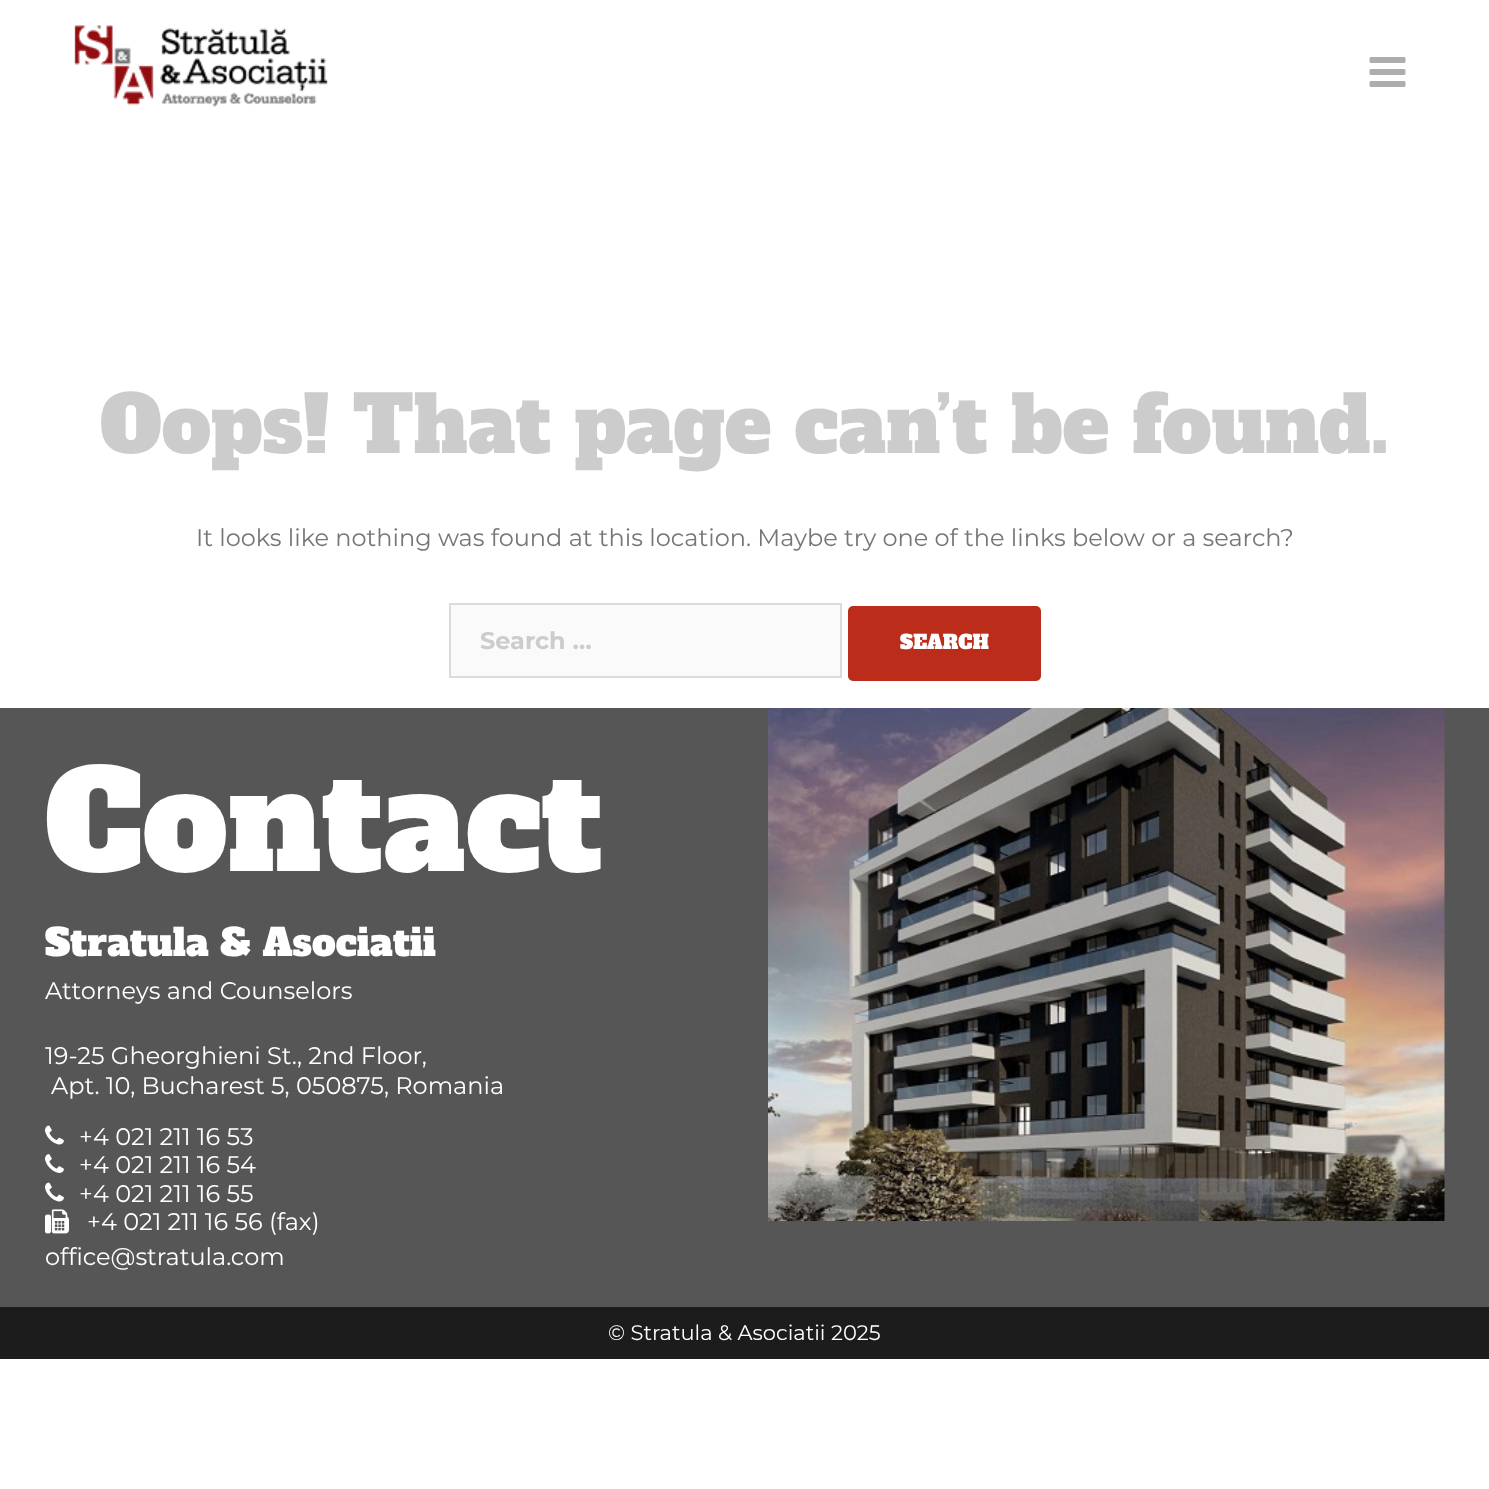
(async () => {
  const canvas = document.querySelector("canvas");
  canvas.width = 1489;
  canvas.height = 1489;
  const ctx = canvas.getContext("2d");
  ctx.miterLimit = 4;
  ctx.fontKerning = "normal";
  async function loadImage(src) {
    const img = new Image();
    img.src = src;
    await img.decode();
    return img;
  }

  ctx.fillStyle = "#ffffff";
  ctx.fillRect(0, 0, 1489, 1489);
  ctx.drawImage(await loadImage("img/1.png"), 74, 25, 254, 82);
  ctx.drawImage(await loadImage("img/2.png"), 1369, 57, 37, 30);
  ctx.fillStyle = "#fafafa";
  ctx.beginPath();
  ctx.rect(450, 604, 391, 73);
  ctx.fill();
  ctx.strokeStyle = "#dbdbdb";
  ctx.lineWidth = 2;
  ctx.stroke();
  ctx.fillStyle = "#bb2d1a";
  ctx.beginPath();
  ctx.roundRect(849, 607, 191, 73, 4);
  ctx.fill();
  ctx.strokeStyle = "#bb2d1a";
  ctx.stroke();
  ctx.fillStyle = "#575656";
  ctx.fillRect(0, 708, 1489, 599);
  ctx.drawImage(await loadImage("img/3.png"), 45, 1125, 19, 20);
  ctx.drawImage(await loadImage("img/4.png"), 45, 1154, 19, 19);
  ctx.drawImage(await loadImage("img/3.png"), 45, 1182, 19, 20);
  ctx.drawImage(await loadImage("img/5.png"), 45, 1209, 24, 25);
  ctx.drawImage(await loadImage("img/6.png"), 768, 708, 677, 513);
  ctx.fillStyle = "#1c1c1c";
  ctx.fillRect(0, 1307, 1489, 52);
  ctx.font = "78px Alfa Slab One";
  ctx.fillStyle = "#cccccc";
  ctx.fillText("Oops! That page can’t be found.", 100, 453);
  ctx.font = "24px Montserrat";
  ctx.fillStyle = "#767676";
  ctx.fillText("It looks like nothing was found at this location. Maybe try one of the links below or a search?", 196, 546);
  ctx.font = "bold 24px Montserrat";
  ctx.fillStyle = "#cccccc";
  ctx.fillText("Search …", 480, 649);
  ctx.font = "19.5px Alfa Slab One";
  ctx.fillStyle = "#ffffff";
  ctx.fillText("SEARCH", 900, 649);
  ctx.font = "135px Alfa Slab One";
  ctx.fillText("Contact", 45, 871);
  ctx.font = "37.5px Alfa Slab One";
  ctx.fillText("Stratula & Asociatii", 45, 956);
  ctx.font = "24px Montserrat";
  for (const [text, x, y] of [
    ["Attorneys and Counselors", 45, 999],
    ["19-25 Gheorghieni St., 2nd Floor,", 45, 1064],
    ["Apt. 10, Bucharest 5, 050875, Romania", 51, 1094],
    ["+4 021 211 16 53", 79, 1145],
    ["+4 021 211 16 54", 79, 1173],
    ["+4 021 211 16 55", 79, 1202],
    ["+4 021 211 16 56 (fax)", 87, 1230],
    ["office@stratula.com", 45, 1265],
  ]) {
    ctx.fillText(text, x, y);
  }
  ctx.font = "21px Montserrat";
  ctx.fillText("© Stratula & Asociatii 2025", 608, 1340);
})();
